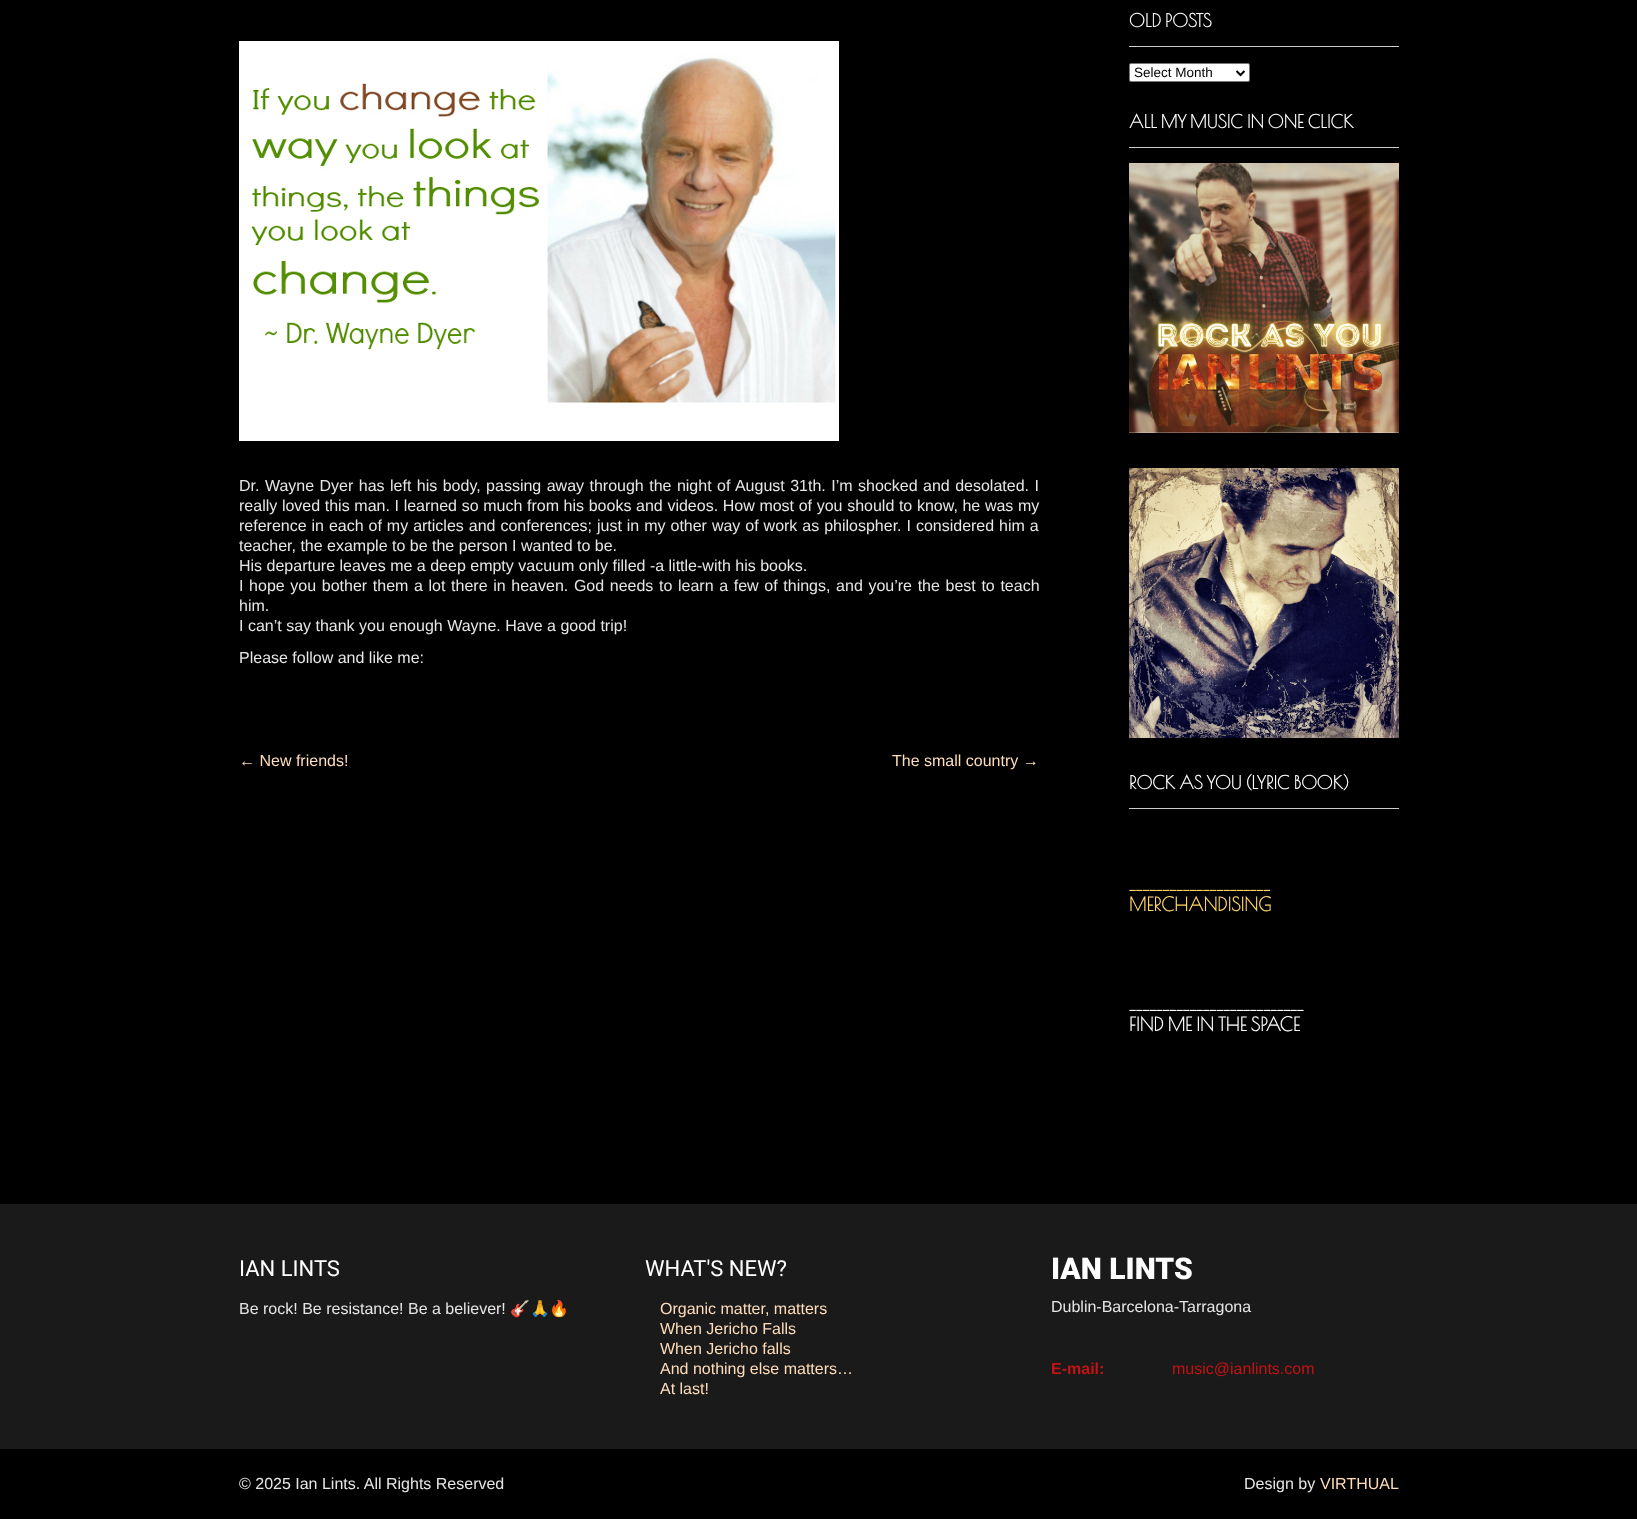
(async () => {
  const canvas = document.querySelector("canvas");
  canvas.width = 1637;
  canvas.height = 1519;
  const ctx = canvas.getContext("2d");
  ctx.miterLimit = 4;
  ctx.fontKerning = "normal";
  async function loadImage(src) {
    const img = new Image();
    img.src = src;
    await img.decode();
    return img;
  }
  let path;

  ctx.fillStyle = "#000000";
  ctx.fillRect(0, 0, 1637, 1519);
  ctx.drawImage(await loadImage("img/1.png"), 239, 41, 600, 400);
  ctx.fillStyle = "#cccccc";
  ctx.fillRect(1129, 46, 270, 1);
  ctx.fillStyle = "#ffffff";
  ctx.beginPath();
  ctx.roundRect(1129.5, 63.5, 120, 18, 1.5);
  ctx.fill();
  ctx.strokeStyle = "#767676";
  ctx.stroke();
  path = new Path2D("M1236.5 71L1240.5 75L1244.5 71");
  ctx.strokeStyle = "#000000";
  ctx.lineWidth = 2;
  ctx.stroke(path);
  ctx.fillStyle = "#cccccc";
  ctx.fillRect(1129, 147, 270, 1);
  ctx.drawImage(await loadImage("img/2.png"), 1129, 163, 270, 270);
  ctx.drawImage(await loadImage("img/3.png"), 1129, 468, 270, 270);
  ctx.fillRect(1129, 808, 270, 1);
  ctx.fillStyle = "#1a1a1a";
  ctx.fillRect(0, 1204, 1637, 245);
  ctx.wordSpacing = "1px";
  ctx.font = "16px Liberation Sans";
  ctx.fillStyle = "#e6e6e6";
  ctx.fillText("Dr. Wayne Dyer has left his body, passing away through the night of August 31th. I’m shocked and desolated. I", 239, 491);
  ctx.wordSpacing = "0.2px";
  ctx.fillText("really loved this man. I learned so much from his books and videos. How most of you should to know, he was my", 239, 511);
  ctx.wordSpacing = "0.5px";
  ctx.fillText("reference in each of my articles and conferences; just in my other way of work as philospher. I considered him a", 239, 531);
  ctx.wordSpacing = "0px";
  ctx.fillText("teacher, the example to be the person I wanted to be.", 239, 551);
  ctx.fillText("His departure leaves me a deep empty vacuum only filled -a little-with his books.", 239, 571);
  ctx.wordSpacing = "1.2px";
  ctx.fillText("I hope you bother them a lot there in heaven. God needs to learn a few of things, and you’re the best to teach", 239, 591);
  ctx.wordSpacing = "0px";
  for (const [text, x, y] of [
    ["him.", 239, 611],
    ["I can’t say thank you enough Wayne. Have a good trip!", 239, 631],
    ["Please follow and like me:", 239, 663],
  ]) {
    ctx.fillText(text, x, y);
  }
  ctx.fillStyle = "#ffddba";
  ctx.fillText("← New friends!", 239, 766);
  ctx.fillText("The small country →", 892, 766);
  ctx.font = "bold 18px Poiret One";
  ctx.fillStyle = "#ffffff";
  ctx.fillText("OLD POSTS", 1129, 27);
  ctx.font = "13.5px Liberation Sans";
  ctx.fillStyle = "#000000";
  ctx.fillText("Select Month", 1134, 77);
  ctx.font = "bold 18px Poiret One";
  ctx.fillStyle = "#ffffff";
  ctx.fillText("ALL MY MUSIC IN ONE CLICK", 1129, 128);
  ctx.fillText("ROCK AS YOU (LYRIC BOOK)", 1129, 789);
  ctx.font = "bold 18.75px Poiret One";
  ctx.fillStyle = "#fdd466";
  ctx.fillText("_____________________", 1129, 891);
  ctx.fillText("MERCHANDISING", 1129, 911);
  ctx.fillStyle = "#ffffff";
  ctx.fillText("__________________________", 1129, 1011);
  ctx.fillText("FIND ME IN THE SPACE", 1129, 1031);
  ctx.font = "22px Roboto";
  ctx.fillText("IAN LINTS", 239, 1276);
  ctx.font = "16px Liberation Sans";
  ctx.fillStyle = "#e6e6e6";
  ctx.fillText("Be rock! Be resistance! Be a believer!", 239, 1314);
  ctx.font = "16px Noto Color Emoji";
  ctx.fillText("🎸🙏🔥", 510, 1314);
  ctx.font = "22px Roboto";
  ctx.fillStyle = "#ffffff";
  ctx.fillText("WHAT'S NEW?", 645, 1276);
  ctx.font = "16px Liberation Sans";
  ctx.fillStyle = "#ffddba";
  for (const [text, x, y] of [
    ["Organic matter, matters", 660, 1314],
    ["When Jericho Falls", 660, 1334],
    ["When Jericho falls", 660, 1354],
    ["And nothing else matters…", 660, 1374],
    ["At last!", 660, 1394],
  ]) {
    ctx.fillText(text, x, y);
  }
  ctx.font = "900 30px Roboto";
  ctx.fillStyle = "#ffffff";
  ctx.fillText("IAN LINTS", 1051, 1279);
  ctx.font = "16px Liberation Sans";
  ctx.fillStyle = "#e6e6e6";
  ctx.fillText("Dublin-Barcelona-Tarragona", 1051, 1312);
  ctx.font = "bold 16px Liberation Sans";
  ctx.fillStyle = "#c41313";
  ctx.fillText("E-mail:", 1051, 1374);
  ctx.font = "16px Liberation Sans";
  ctx.fillText("music@ianlints.com", 1172, 1374);
  ctx.fillStyle = "#e6e6e6";
  ctx.fillText("© 2025 Ian Lints. All Rights Reserved", 239, 1489);
  ctx.fillText("Design by", 1244, 1489);
  ctx.fillStyle = "#ffddba";
  ctx.fillText("VIRTHUAL", 1320, 1489);
})();
